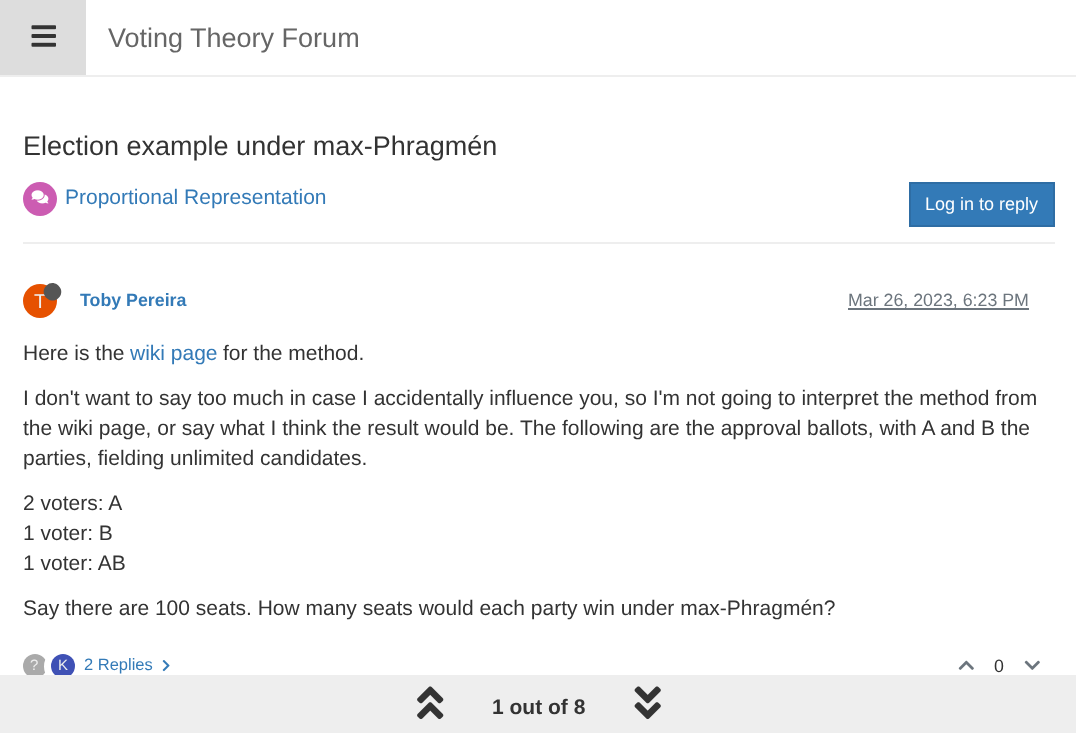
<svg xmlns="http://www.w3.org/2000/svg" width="1076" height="733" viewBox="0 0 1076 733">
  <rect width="100%" height="100%" fill="rgb(255,255,255)"/>
  <rect x="0" y="75" width="1076" height="2" fill="rgb(238,238,238)"/>
  <rect x="0" y="0" width="86" height="75" fill="rgb(221,221,221)"/>
  <image x="31" y="25" width="25" height="22" href="pic1.png"/>
  <text x="108" y="47" font-family="Liberation Sans" font-size="27" fill="rgb(102,102,102)">Voting Theory Forum</text>
  <text x="23" y="155" font-family="Liberation Sans" font-size="27" fill="rgb(51,51,51)">Election example under max-Phragmén</text>
  <rect x="23" y="242" width="1032" height="2" fill="rgb(238,238,238)"/>
  <circle cx="40" cy="199" r="17" fill="rgb(204,92,178)"/>
  <image x="31" y="190" width="18" height="14" href="pic2.png"/>
  <text x="65" y="204" font-family="Liberation Sans" font-size="21" fill="rgb(51,122,183)">Proportional Representation</text>
  <rect x="910" y="183" width="144" height="43" fill="rgb(51,122,183)" stroke="rgb(46,109,164)" stroke-width="2"/>
  <text x="925" y="210" font-family="Liberation Sans" font-size="18" fill="rgb(255,255,255)">Log in to reply</text>
  <circle cx="40" cy="301" r="17" fill="rgb(230,81,0)"/>
  <text x="34" y="308" font-family="Liberation Sans" font-size="20" fill="rgb(238,238,238)">T</text>
  <path d="M46.5 285.5C54.5 277.5 67 290 58.5 298C50.5 306 38 293.5 46.5 285.5Z" fill="rgb(85,85,85)"/>
  <text x="80" y="306" font-family="Liberation Sans" font-size="17.8" font-weight="bold" fill="rgb(51,122,183)">Toby Pereira</text>
  <rect x="848" y="308" width="181" height="2" fill="rgb(108,117,125)"/>
  <text x="848" y="306" font-family="Liberation Sans" font-size="17.8" fill="rgb(108,117,125)">Mar 26, 2023, 6:23 PM</text>
  <text x="23" y="360" font-family="Liberation Sans" font-size="21" fill="rgb(51,51,51)">Here is the</text>
  <text x="130" y="360" font-family="Liberation Sans" font-size="21" fill="rgb(51,122,183)">wiki page</text>
  <g font-family="Liberation Sans" font-size="21" fill="rgb(51,51,51)">
    <text x="223" y="360">for the method.</text>
    <text>
      <tspan x="23" y="405">I don't want to say too much in case I accidentally influence you, so I'm not going to interpret the method from</tspan>
      <tspan x="23" y="435">the wiki page, or say what I think the result would be. The following are the approval ballots, with A and B the</tspan>
      <tspan x="23" y="465">parties, fielding unlimited candidates.</tspan>
    </text>
    <text>
      <tspan x="23" y="510">2 voters: A</tspan>
      <tspan x="23" y="540">1 voter: B</tspan>
      <tspan x="23" y="570">1 voter: AB</tspan>
    </text>
    <text x="23" y="615">Say there are 100 seats. How many seats would each party win under max-Phragmén?</text>
  </g>
  <circle cx="35" cy="666" r="12" fill="rgb(170,170,170)"/>
  <text x="30" y="670" font-family="Liberation Sans" font-size="15" fill="rgb(238,238,238)">?</text>
  <circle cx="63.5" cy="666.5" r="15.5" fill="none" stroke="rgb(255,255,255)" stroke-width="8"/>
  <circle cx="63" cy="666" r="12" fill="rgb(63,81,181)"/>
  <text x="58" y="670" font-family="Liberation Sans" font-size="15" fill="rgb(238,238,238)">K</text>
  <text x="84" y="670" font-family="Liberation Sans" font-size="16.5" fill="rgb(51,122,183)">2 Replies</text>
  <image x="162" y="660" width="8" height="12" href="pic3.png"/>
  <image x="958" y="660" width="16" height="10" href="pic4.png"/>
  <text x="994" y="672" font-family="Liberation Sans" font-size="17.8" fill="rgb(51,51,51)">0</text>
  <image x="1024" y="660" width="16" height="10" href="pic5.png"/>
  <rect x="0" y="675" width="1076" height="58" fill="rgb(238,238,238)"/>
  <image x="417" y="686" width="27" height="34" href="pic6.png"/>
  <text x="492" y="714" font-family="Liberation Sans" font-size="21" font-weight="bold" fill="rgb(51,51,51)">1 out of 8</text>
  <image x="634" y="686" width="27" height="34" href="pic7.png"/>
</svg>
